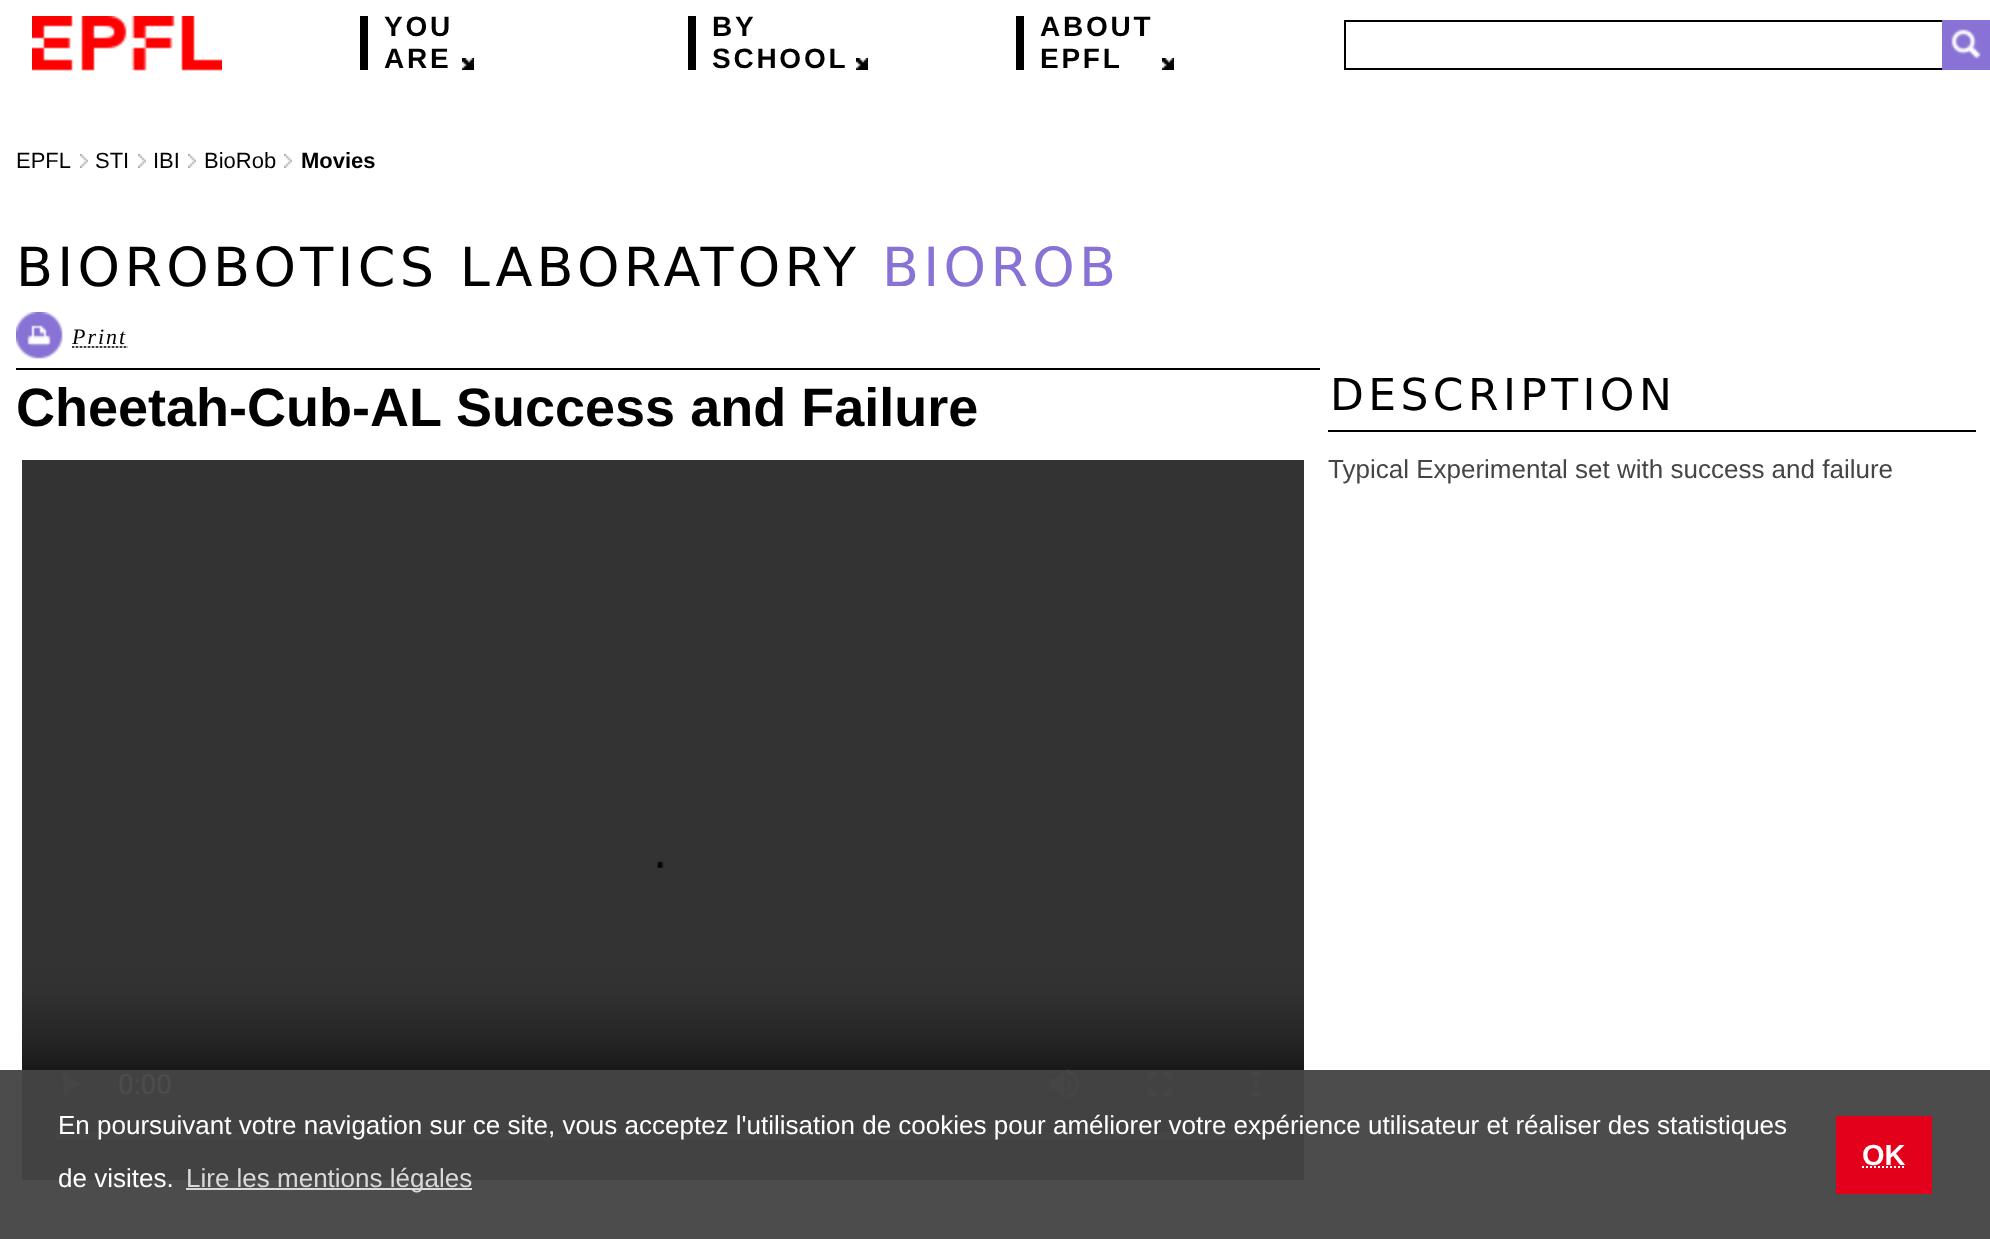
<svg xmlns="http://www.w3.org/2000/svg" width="1990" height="1239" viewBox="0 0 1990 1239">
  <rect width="100%" height="100%" fill="rgb(255,255,255)"/>
  <image x="32" y="16" width="190" height="55" href="pic1.png"/>
  <rect x="360" y="16" width="8" height="54" fill="rgb(0,0,0)"/>
  <g font-family="Liberation Sans" font-size="28" font-weight="bold" letter-spacing="2.75" fill="rgb(0,0,0)">
    <text>
      <tspan x="384" y="36">YOU</tspan>
      <tspan x="384" y="68">ARE</tspan>
    </text>
  </g>
  <image x="462" y="58" width="12" height="12" href="pic2.png"/>
  <rect x="688" y="16" width="8" height="54" fill="rgb(0,0,0)"/>
  <g font-family="Liberation Sans" font-size="28" font-weight="bold" letter-spacing="2.75" fill="rgb(0,0,0)">
    <text>
      <tspan x="712" y="36">BY</tspan>
      <tspan x="712" y="68">SCHOOL</tspan>
    </text>
  </g>
  <image x="856" y="58" width="12" height="12" href="pic2.png"/>
  <rect x="1016" y="16" width="8" height="54" fill="rgb(0,0,0)"/>
  <g font-family="Liberation Sans" font-size="28" font-weight="bold" letter-spacing="2.75" fill="rgb(0,0,0)">
    <text>
      <tspan x="1040" y="36">ABOUT</tspan>
      <tspan x="1040" y="68">EPFL</tspan>
    </text>
  </g>
  <image x="1162" y="58" width="12" height="12" href="pic2.png"/>
  <rect x="1344" y="20" width="598" height="2" fill="rgb(0,0,0)"/>
  <rect x="1344" y="68" width="598" height="2" fill="rgb(0,0,0)"/>
  <rect x="1344" y="20" width="2" height="50" fill="rgb(0,0,0)"/>
  <rect x="1942" y="20" width="48" height="50" fill="rgb(137,114,213)"/>
  <image x="1951" y="29" width="30" height="30" href="pic3.png"/>
  <text x="16" y="168" font-family="Liberation Sans" font-size="22" fill="rgb(0,0,0)">EPFL</text>
  <image x="80" y="154" width="8" height="14" href="pic4.png"/>
  <text x="95" y="168" font-family="Liberation Sans" font-size="22" fill="rgb(0,0,0)">STI</text>
  <image x="138" y="154" width="8" height="14" href="pic4.png"/>
  <text x="153" y="168" font-family="Liberation Sans" font-size="22" fill="rgb(0,0,0)">IBI</text>
  <image x="188" y="154" width="8" height="14" href="pic4.png"/>
  <text x="204" y="168" font-family="Liberation Sans" font-size="22" fill="rgb(0,0,0)">BioRob</text>
  <image x="284" y="154" width="8" height="14" href="pic4.png"/>
  <text x="301" y="168" font-family="Liberation Sans" font-size="22" font-weight="bold" fill="rgb(0,0,0)">Movies</text>
  <text x="16" y="286" font-family="DejaVu Sans" font-size="54" letter-spacing="4.3" fill="rgb(0,0,0)">BIOROBOTICS LABORATORY</text>
  <text x="882" y="286" font-family="DejaVu Sans" font-size="54" letter-spacing="4.3" fill="rgb(137,114,213)">BIOROB</text>
  <image x="16" y="312" width="47" height="47" href="pic5.png"/>
  <image x="72" y="346" width="56" height="2" href="pic6.png"/>
  <text x="72" y="344" font-family="Liberation Serif" font-size="22" font-style="italic" letter-spacing="2" fill="rgb(0,0,0)">Print</text>
  <rect x="16" y="368" width="1304" height="2" fill="rgb(0,0,0)"/>
  <text x="16" y="426" font-family="Liberation Sans" font-size="54" font-weight="bold" fill="rgb(0,0,0)">Cheetah-Cub-AL Success and Failure</text>
  <rect x="22" y="1140" width="1282" height="40" fill="rgb(0,0,0)"/>
  <image x="22" y="460" width="1282" height="680" href="pic7.png"/>
  <rect x="1328" y="430" width="648" height="2" fill="rgb(0,0,0)"/>
  <text x="1330" y="410" font-family="DejaVu Sans" font-size="44" letter-spacing="4.4" fill="rgb(0,0,0)">DESCRIPTION</text>
  <text x="1328" y="478" font-family="Liberation Sans" font-size="26" fill="rgb(69,69,69)">Typical Experimental set with success and failure</text>
  <rect x="0" y="1070" width="1990" height="169" fill="rgba(69,69,69,0.96)"/>
  <g font-family="Liberation Sans" font-size="26" fill="rgb(255,255,255)">
    <text x="58" y="1134">En poursuivant votre navigation sur ce site, vous acceptez l'utilisation de cookies pour améliorer votre expérience utilisateur et réaliser des statistiques</text>
    <text x="58" y="1187">de visites.</text>
  </g>
  <rect x="186" y="1188" width="286" height="2" fill="rgb(219,219,219)"/>
  <text x="186" y="1187" font-family="Liberation Sans" font-size="26" fill="rgb(218,218,218)">Lire les mentions légales</text>
  <rect x="1836" y="1116" width="96" height="78" fill="rgb(226,0,26)"/>
  <text x="1862" y="1165" font-family="Liberation Sans" font-size="29" font-weight="bold" fill="rgb(255,255,255)">OK</text>
  <path d="M1862 1167H1905.5" fill="none" stroke="rgb(255,255,255)" stroke-width="2" stroke-dasharray="2 2"/>
</svg>
